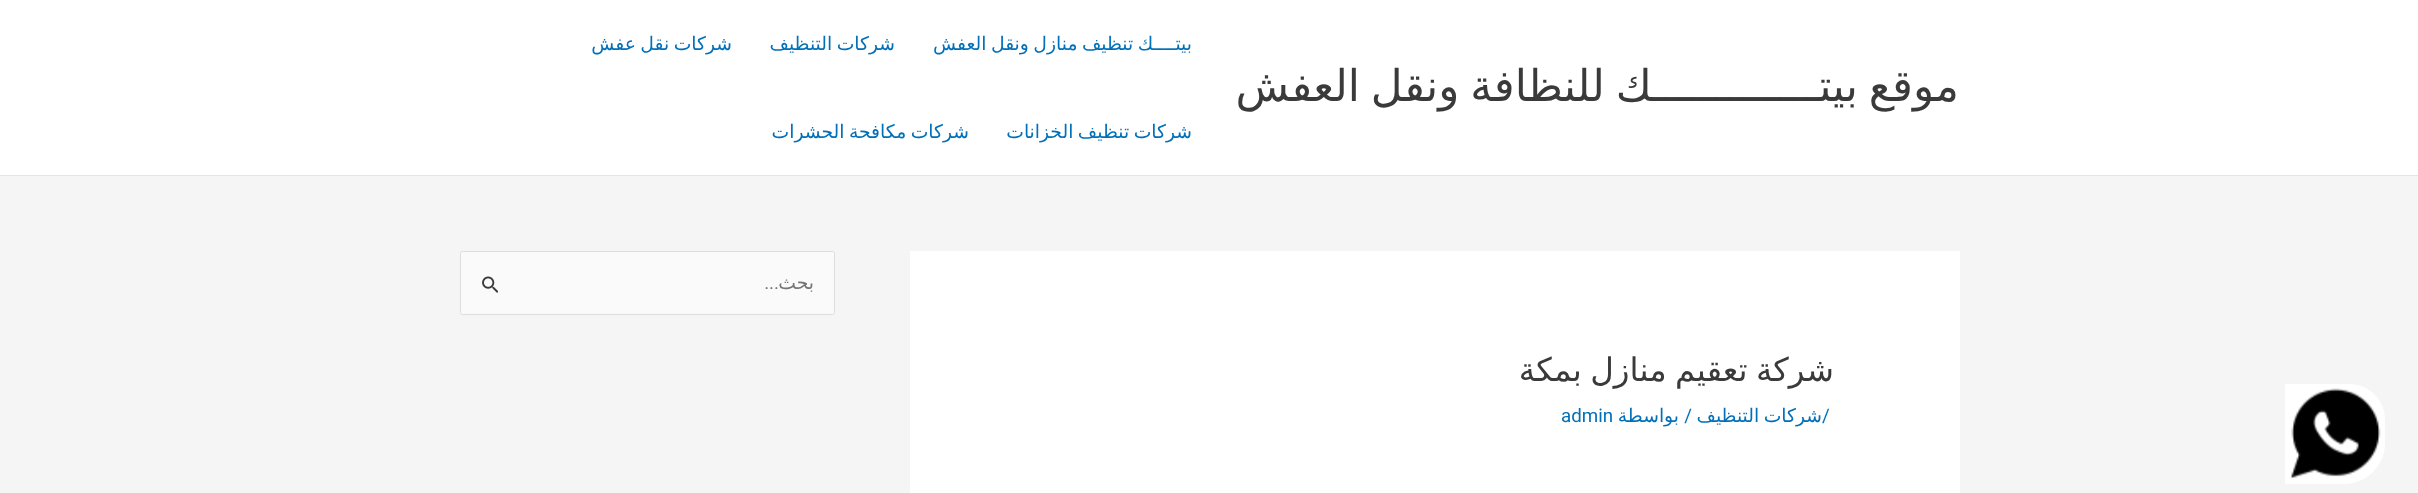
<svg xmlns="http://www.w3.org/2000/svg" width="2418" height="493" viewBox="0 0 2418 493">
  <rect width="100%" height="100%" fill="rgb(245,245,245)"/>
  <rect x="0" y="0" width="2418" height="175" fill="rgb(255,255,255)"/>
  <rect x="0" y="175" width="2418" height="1" fill="rgb(229,229,229)"/>
  <text x="1959" y="101" word-spacing="-3" font-family="DejaVu Sans" font-size="43.75" direction="rtl" fill="rgb(58,58,58)">موقع بيتـــــــــــــك للنظافة ونقل العفش</text>
  <g font-family="DejaVu Sans" font-size="18.75" direction="rtl" fill="rgb(1,112,185)">
    <text x="1192" y="50" word-spacing="-1.5">بيتــــك تنظيف منازل ونقل العفش</text>
    <text x="895" y="50" word-spacing="-1.5">شركات التنظيف</text>
    <text x="732" y="50" word-spacing="-1.5">شركات نقل عفش</text>
    <text x="1192" y="138" word-spacing="-1.5">شركات تنظيف الخزانات</text>
    <text x="969" y="138" word-spacing="-1.5">شركات مكافحة الحشرات</text>
  </g>
  <rect x="460.5" y="251.5" width="374" height="63" rx="2" fill="rgb(250,250,250)" stroke="rgb(221,221,221)"/>
  <text x="814" y="289" font-family="DejaVu Sans" font-size="18.75" direction="rtl" fill="rgb(117,117,117)">بحث</text>
  <text x="779" y="289" font-family="Roboto" font-size="18.75" direction="rtl" fill="rgb(117,117,117)">...</text>
  <image x="482" y="276" width="16" height="17" href="pic1.png"/>
  <rect x="910" y="251" width="1050" height="242" fill="rgb(255,255,255)"/>
  <path d="M2285 384H2349C2369 384 2385 400 2385 420V443C2385 465.5 2366.5 484 2344 484H2285Z" fill="rgb(255,255,255)"/>
  <image x="2290" y="388" width="91" height="91" href="pic2.png"/>
  <text x="1834" y="381" word-spacing="-2" font-family="DejaVu Sans" font-size="32.5" direction="rtl" fill="rgb(58,58,58)">شركة تعقيم منازل بمكة</text>
  <text x="1822" y="422" font-family="Roboto" font-size="18.75" fill="rgb(1,112,185)">/</text>
  <text x="1822" y="422" word-spacing="-1.5" font-family="DejaVu Sans" font-size="18.75" direction="rtl" fill="rgb(1,112,185)">شركات التنظيف</text>
  <text x="1692" y="422" font-family="Roboto" font-size="18.75" direction="rtl" fill="rgb(1,112,185)">/</text>
  <text x="1679" y="422" font-family="DejaVu Sans" font-size="18.75" direction="rtl" fill="rgb(1,112,185)">بواسطة</text>
  <text x="1561" y="422" font-family="Roboto" font-size="18.75" fill="rgb(1,112,185)">admin</text>
</svg>
